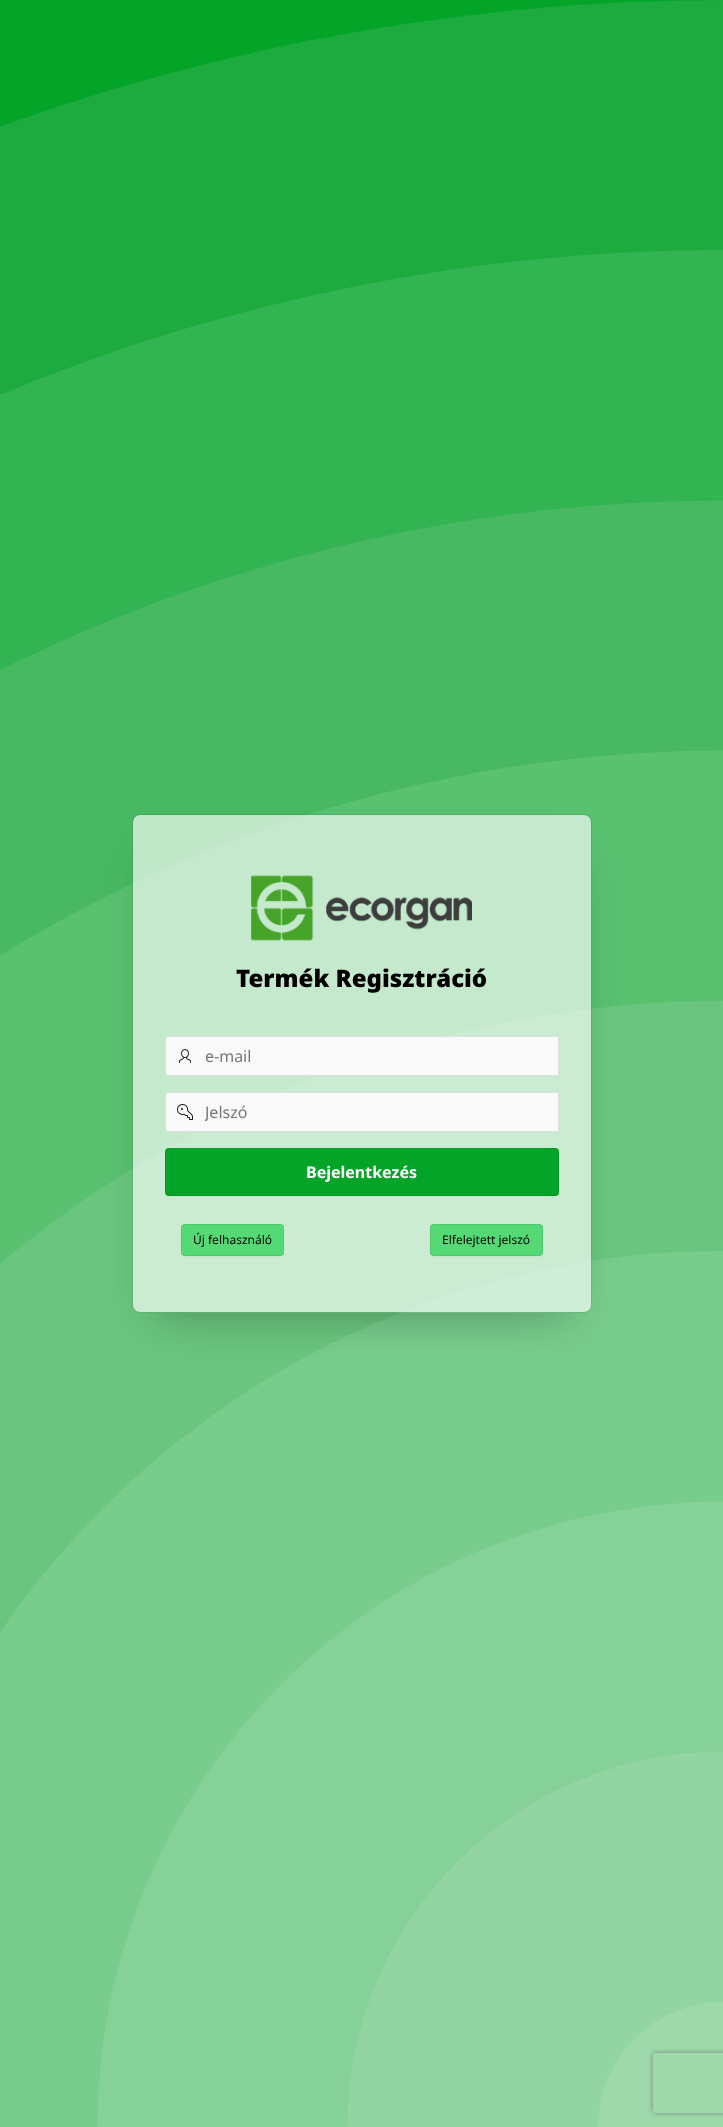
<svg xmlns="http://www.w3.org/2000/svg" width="723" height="2127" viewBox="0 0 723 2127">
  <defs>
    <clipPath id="clip1"><path d="M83 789H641V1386H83ZM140 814H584C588.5 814 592 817.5 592 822V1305C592 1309.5 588.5 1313 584 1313H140C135.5 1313 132 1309.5 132 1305V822C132 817.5 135.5 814 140 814Z" clip-rule="evenodd"/></clipPath>
    <clipPath id="clip2"><rect x="205" y="1101" width="346" height="22"/></clipPath>
    <clipPath id="clip3"><path d="M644 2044H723V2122H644ZM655 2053H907C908 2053 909 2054 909 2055V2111C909 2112 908 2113 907 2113H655C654 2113 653 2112 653 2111V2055C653 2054 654 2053 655 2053Z" clip-rule="evenodd"/></clipPath>
  </defs>
  <rect width="100%" height="100%" fill="rgb(4,164,41)"/>
  <circle cx="723" cy="2127" r="2127" fill="rgb(29,170,62)"/>
  <circle cx="723" cy="2127" r="1877" fill="rgb(51,180,82)"/>
  <circle cx="723" cy="2127" r="1626.5" fill="rgb(72,185,98)"/>
  <circle cx="723" cy="2127" r="1376.5" fill="rgb(90,193,113)"/>
  <circle cx="723" cy="2127" r="1126" fill="rgb(106,198,126)"/>
  <circle cx="723" cy="2127" r="876" fill="rgb(120,205,140)"/>
  <circle cx="723" cy="2127" r="625.5" fill="rgb(134,209,152)"/>
  <circle cx="723" cy="2127" r="375.5" fill="rgb(146,213,162)"/>
  <circle cx="723" cy="2127" r="125" fill="rgb(157,217,171)"/>
  <g clip-path="url(#clip1)">
    <rect x="156" y="862" width="412" height="451" fill="rgba(0,0,0,0.3)" filter="blur(24px)"/>
  </g>
  <rect x="133" y="815" width="458" height="497" rx="7" fill="rgba(255,255,255,0.65)"/>
  <rect x="132.5" y="814.5" width="459" height="498" rx="7.5" fill="none" stroke="rgba(0,0,0,0.1)"/>
  <image x="251" y="875" width="221" height="66" href="pic1.png"/>
  <text x="236" y="987" font-family="Noto Sans" font-size="24" font-weight="900" fill="rgb(0,0,0)">Termék Regisztráció</text>
  <rect x="165.5" y="1036.5" width="393" height="39" rx="1.5" fill="rgb(249,249,249)" stroke="rgb(223,223,223)"/>
  <image x="179" y="1049" width="12" height="14" href="pic2.png"/>
  <text x="205" y="1062" font-family="Noto Sans" font-size="16" fill="rgb(119,119,119)">e-mail</text>
  <rect x="165.5" y="1092.5" width="393" height="39" rx="1.5" fill="rgb(249,249,249)" stroke="rgb(223,223,223)"/>
  <image x="177" y="1104" width="16" height="16" href="pic3.png"/>
  <g clip-path="url(#clip2)">
    <text x="205" y="1118" font-family="Noto Sans" font-size="16" fill="rgb(119,119,119)">Jelszó</text>
  </g>
  <rect x="168" y="1153" width="388" height="42" rx="1" fill="rgba(0,0,0,0.1)" filter="blur(2px)"/>
  <rect x="165" y="1148" width="394" height="48" rx="4" fill="rgb(4,164,41)"/>
  <rect x="165.5" y="1148.5" width="393" height="47" rx="3.5" fill="none" stroke="rgba(0,0,0,0.07)"/>
  <text x="306" y="1178" font-family="Noto Sans" font-size="16" font-weight="bold" fill="rgb(255,255,255)">Bejelentkezés</text>
  <rect x="184" y="1229" width="97" height="26" rx="1" fill="rgba(0,0,0,0.1)" filter="blur(2px)"/>
  <rect x="181" y="1224" width="103" height="32" rx="4" fill="rgb(85,217,116)"/>
  <rect x="181.5" y="1224.5" width="102" height="31" rx="3.5" fill="none" stroke="rgba(0,0,0,0.07)"/>
  <text x="193" y="1244" font-family="Noto Sans" font-size="12" fill="rgb(0,0,0)">Új felhasználó</text>
  <rect x="433" y="1229" width="107" height="26" rx="1" fill="rgba(0,0,0,0.1)" filter="blur(2px)"/>
  <rect x="430" y="1224" width="113" height="32" rx="4" fill="rgb(85,217,116)"/>
  <rect x="430.5" y="1224.5" width="112" height="31" rx="3.5" fill="none" stroke="rgba(0,0,0,0.07)"/>
  <text x="442" y="1244" font-family="Noto Sans" font-size="12" fill="rgb(0,0,0)">Elfelejtett jelszó</text>
  <g clip-path="url(#clip3)">
    <rect x="653" y="2053" width="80" height="60" rx="2" fill="rgb(128,128,128)" filter="blur(2.5px)"/>
  </g>
</svg>
